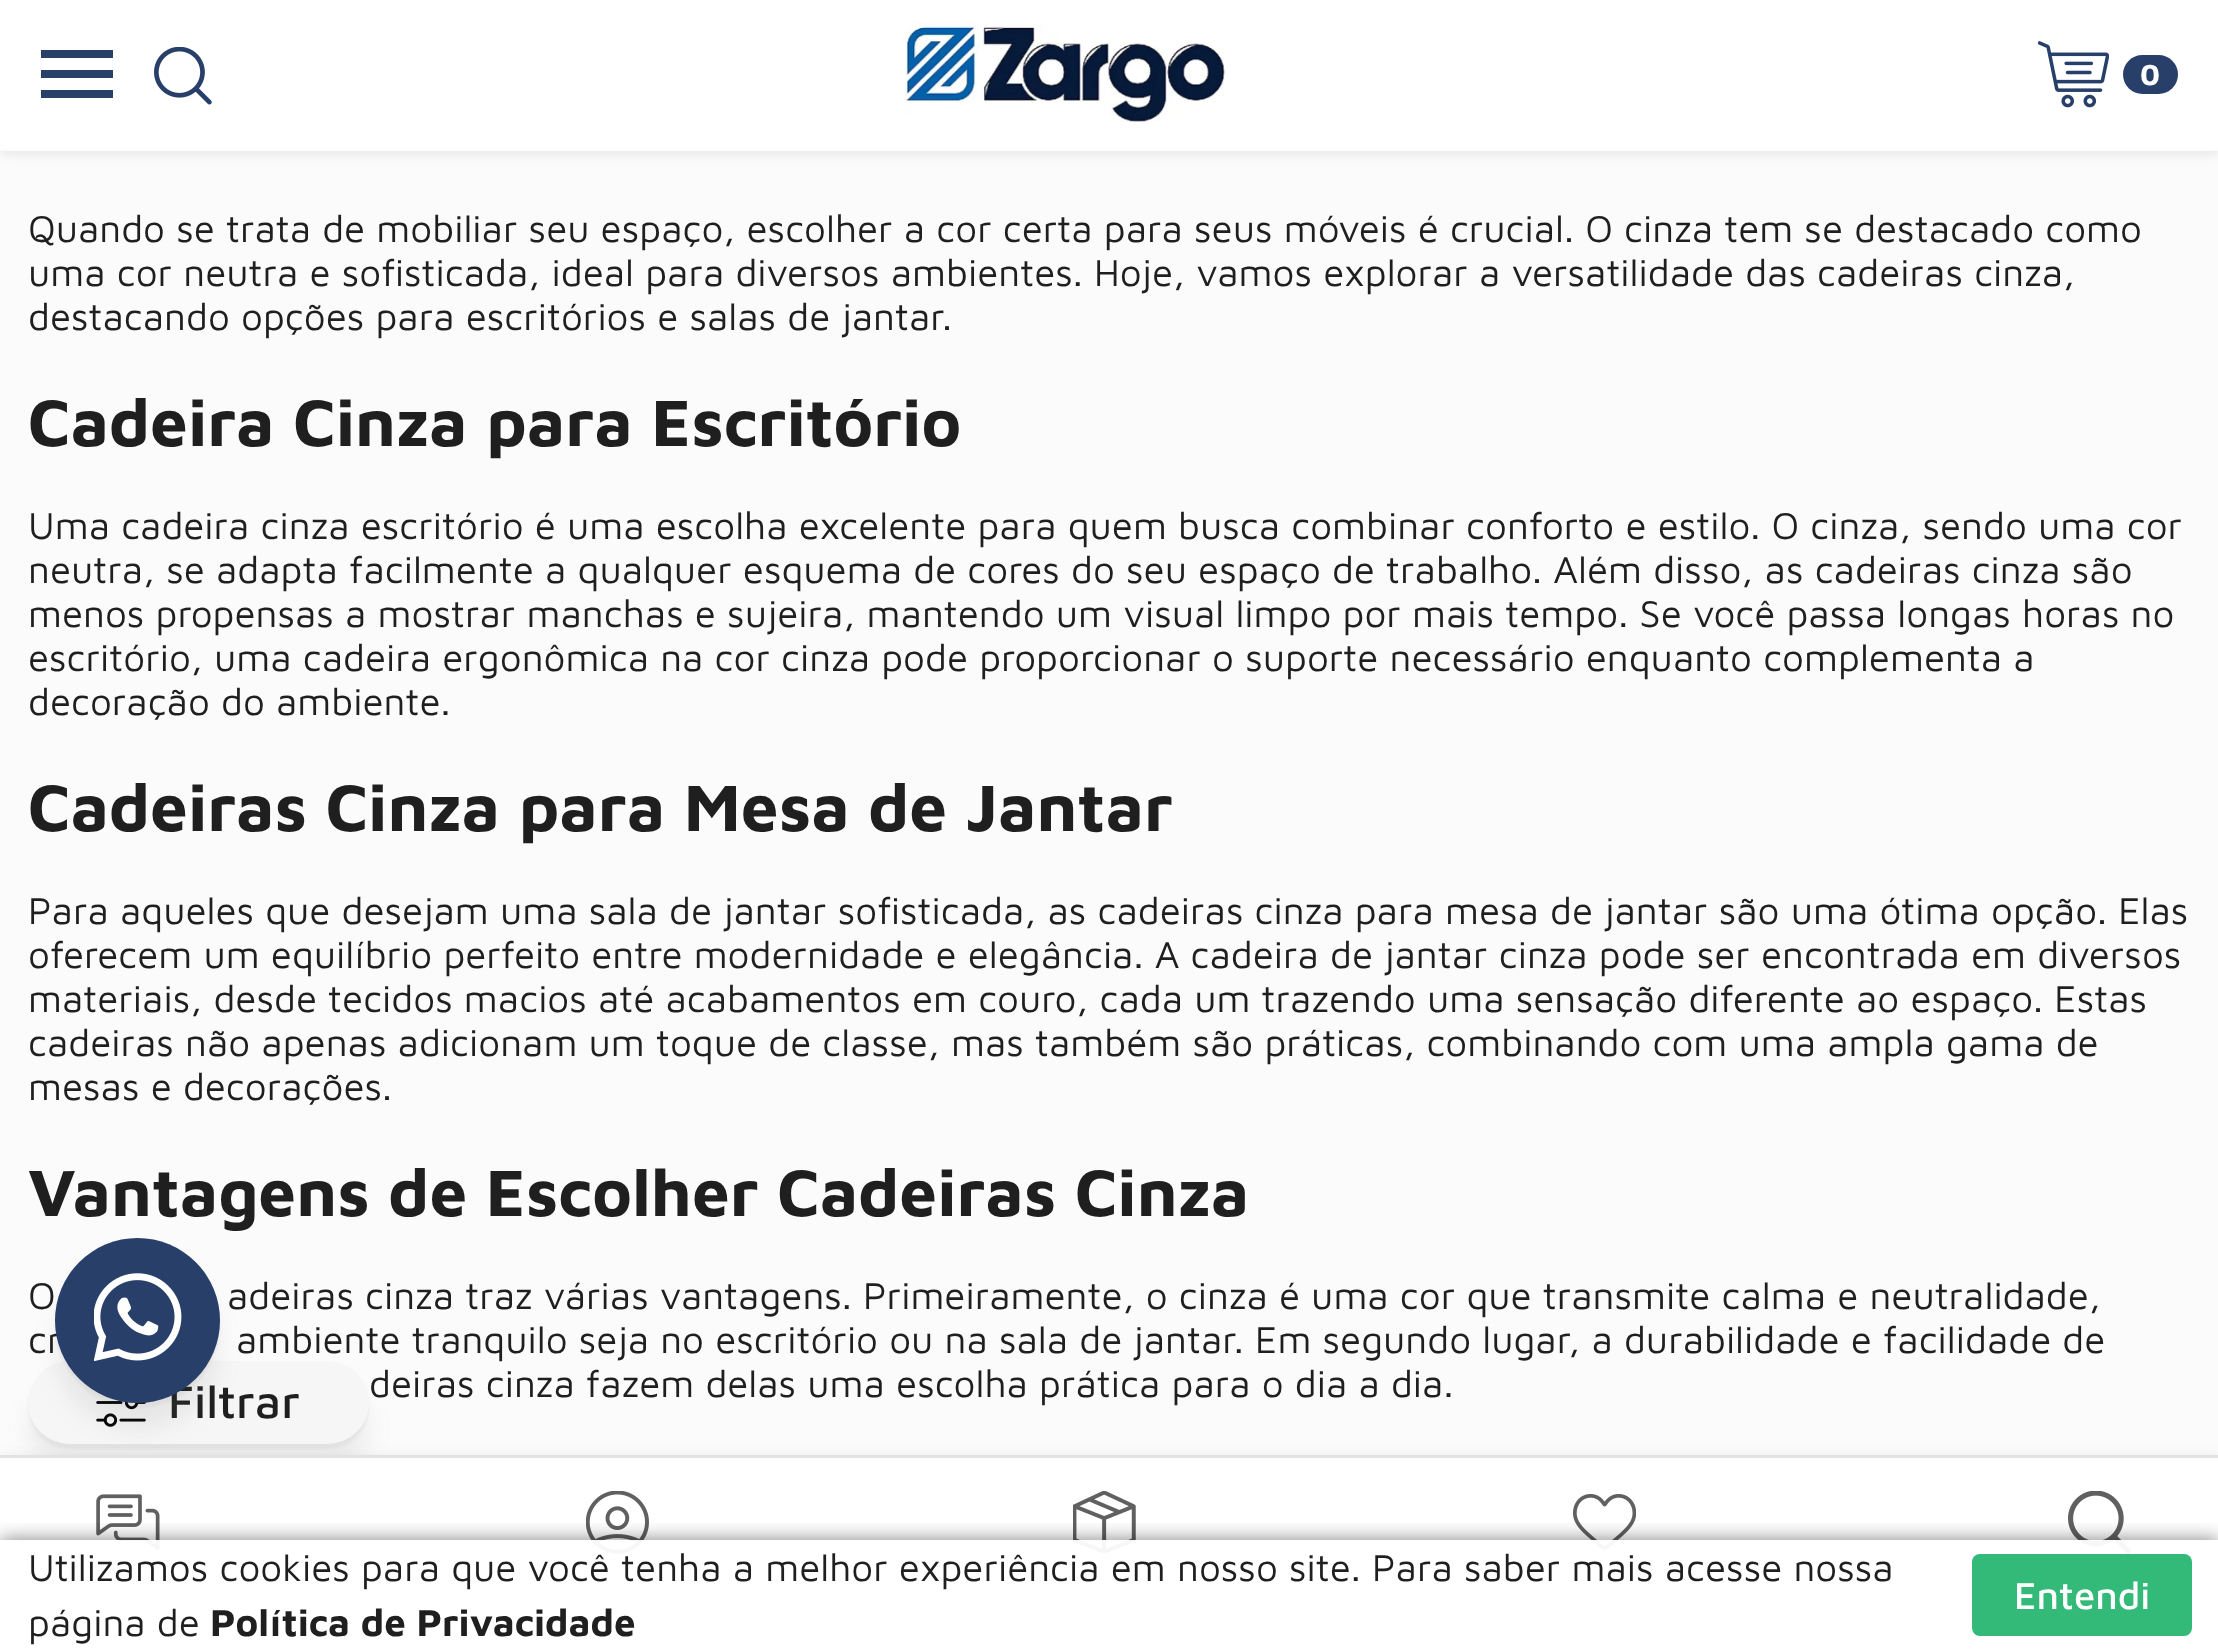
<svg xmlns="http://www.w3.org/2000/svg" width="2218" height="1650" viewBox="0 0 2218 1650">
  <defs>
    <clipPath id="clip1"><rect x="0" y="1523" width="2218" height="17"/></clipPath>
  </defs>
  <rect width="100%" height="100%" fill="rgb(251,251,251)"/>
  <rect x="0" y="3" width="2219" height="151" fill="rgba(82,82,82,0.13)" filter="blur(5.5px)"/>
  <rect x="0" y="0" width="2218" height="151" fill="rgb(255,255,255)"/>
  <rect x="0" y="149" width="2218" height="2" fill="rgba(239,239,239,0.19)"/>
  <rect x="41" y="90" width="72" height="8" fill="rgb(40,63,106)"/>
  <rect x="41" y="70" width="72" height="8" fill="rgb(40,63,106)"/>
  <rect x="41" y="50" width="72" height="8" fill="rgb(40,63,106)"/>
  <image x="154" y="47" width="58" height="58" href="pic1.png"/>
  <image x="905" y="22" width="320" height="100" href="pic2.png"/>
  <image x="2038" y="41" width="71" height="67" href="pic3.png"/>
  <rect x="2123" y="55" width="55" height="39" rx="19.5" fill="rgb(40,63,106)"/>
  <text x="2140" y="85" font-family="Maven Pro" font-size="30" font-weight="bold" fill="rgb(255,255,255)">0</text>
  <g font-family="Maven Pro" font-size="38.5" fill="rgb(32,31,31)">
    <text>
      <tspan x="28" y="242">Quando se trata de mobiliar seu espaço, escolher a cor certa para seus móveis é crucial. O cinza tem se destacado como</tspan>
      <tspan x="28" y="286">uma cor neutra e sofisticada, ideal para diversos ambientes. Hoje, vamos explorar a versatilidade das cadeiras cinza,</tspan>
      <tspan x="28" y="330">destacando opções para escritórios e salas de jantar.</tspan>
    </text>
  </g>
  <text x="28" y="446" font-family="Maven Pro" font-size="67.4" font-weight="bold" fill="rgb(32,31,31)">Cadeira Cinza para Escritório</text>
  <g font-family="Maven Pro" font-size="38.5" fill="rgb(32,31,31)">
    <text>
      <tspan x="28" y="539">Uma cadeira cinza escritório é uma escolha excelente para quem busca combinar conforto e estilo. O cinza, sendo uma cor</tspan>
      <tspan x="28" y="583">neutra, se adapta facilmente a qualquer esquema de cores do seu espaço de trabalho. Além disso, as cadeiras cinza são</tspan>
      <tspan x="28" y="627">menos propensas a mostrar manchas e sujeira, mantendo um visual limpo por mais tempo. Se você passa longas horas no</tspan>
      <tspan x="28" y="671">escritório, uma cadeira ergonômica na cor cinza pode proporcionar o suporte necessário enquanto complementa a</tspan>
      <tspan x="28" y="715">decoração do ambiente.</tspan>
    </text>
  </g>
  <text x="28" y="831" font-family="Maven Pro" font-size="67.4" font-weight="bold" fill="rgb(32,31,31)">Cadeiras Cinza para Mesa de Jantar</text>
  <g font-family="Maven Pro" font-size="38.5" fill="rgb(32,31,31)">
    <text>
      <tspan x="28" y="924">Para aqueles que desejam uma sala de jantar sofisticada, as cadeiras cinza para mesa de jantar são uma ótima opção. Elas</tspan>
      <tspan x="28" y="968">oferecem um equilíbrio perfeito entre modernidade e elegância. A cadeira de jantar cinza pode ser encontrada em diversos</tspan>
      <tspan x="28" y="1012">materiais, desde tecidos macios até acabamentos em couro, cada um trazendo uma sensação diferente ao espaço. Estas</tspan>
      <tspan x="28" y="1056">cadeiras não apenas adicionam um toque de classe, mas também são práticas, combinando com uma ampla gama de</tspan>
      <tspan x="28" y="1100">mesas e decorações.</tspan>
    </text>
  </g>
  <text x="28" y="1216" font-family="Maven Pro" font-size="67.4" font-weight="bold" fill="rgb(32,31,31)">Vantagens de Escolher Cadeiras Cinza</text>
  <g font-family="Maven Pro" font-size="38.5" fill="rgb(32,31,31)">
    <text x="28" y="1309">O</text>
    <text x="227" y="1309">adeiras cinza traz várias vantagens. Primeiramente, o cinza é uma cor que transmite calma e neutralidade,</text>
    <text x="28" y="1353">cr</text>
    <text x="236" y="1353">ambiente tranquilo seja no escritório ou na sala de jantar. Em segundo lugar, a durabilidade e facilidade de</text>
    <text x="369" y="1397">deiras cinza fazem delas uma escolha prática para o dia a dia.</text>
  </g>
  <rect x="28" y="1389" width="341" height="82" rx="41" fill="rgba(103,103,103,0.1)" filter="blur(11px)"/>
  <rect x="28" y="1367" width="341" height="82" rx="41" fill="rgba(0,0,0,0.04)" filter="blur(1.5px)"/>
  <rect x="28" y="1361" width="341" height="83" rx="41.5" fill="rgb(246,246,246)"/>
  <image x="96" y="1401" width="50" height="26" href="pic4.png"/>
  <text x="168" y="1418" font-family="Maven Pro" font-size="47" font-weight="500" fill="rgb(32,31,31)">Filtrar</text>
  <rect x="55" y="1265" width="165" height="165" rx="82.5" fill="rgba(103,103,103,0.1)" filter="blur(11px)"/>
  <rect x="55" y="1243" width="165" height="165" rx="82.5" fill="rgba(0,0,0,0.04)" filter="blur(1.5px)"/>
  <circle cx="137.5" cy="1320.5" r="82.5" fill="rgb(40,63,106)"/>
  <image x="94" y="1273" width="88" height="88" href="pic5.png"/>
  <rect x="0" y="1455" width="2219" height="195" fill="rgba(82,82,82,0.08)" filter="blur(5.5px)"/>
  <rect x="0" y="1458" width="2218" height="192" fill="rgb(255,255,255)"/>
  <rect x="0" y="1455" width="2218" height="3" fill="rgb(226,226,226)"/>
  <image x="96" y="1494" width="64" height="56" href="pic6.png"/>
  <image x="586" y="1491" width="63" height="63" href="pic7.png"/>
  <image x="1073" y="1491" width="63" height="63" href="pic8.png"/>
  <image x="1573" y="1494" width="63" height="57" href="pic9.png"/>
  <image x="2068" y="1491" width="63" height="63" href="pic10.png"/>
  <g clip-path="url(#clip1)">
    <rect x="0" y="1540" width="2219" height="110" fill="rgba(0,0,0,0.5)" filter="blur(9.5px)"/>
  </g>
  <rect x="117" y="1540" width="2014" height="14" fill="rgba(255,255,255,0.95)"/>
  <g font-family="Maven Pro" font-size="38.5" fill="rgb(32,31,31)">
    <text>
      <tspan x="28" y="1581">Utilizamos cookies para que você tenha a melhor experiência em nosso site. Para saber mais acesse nossa</tspan>
      <tspan x="28" y="1636">página de</tspan>
    </text>
  </g>
  <text x="210" y="1636" font-family="Maven Pro" font-size="38.5" font-weight="bold" fill="rgb(32,31,31)">Política de Privacidade</text>
  <rect x="1972" y="1554" width="220" height="82" rx="8" fill="rgb(51,186,121)"/>
  <text x="2014" y="1609" font-family="Maven Pro" font-size="38.5" font-weight="500" fill="rgb(255,255,255)">Entendi</text>
</svg>
